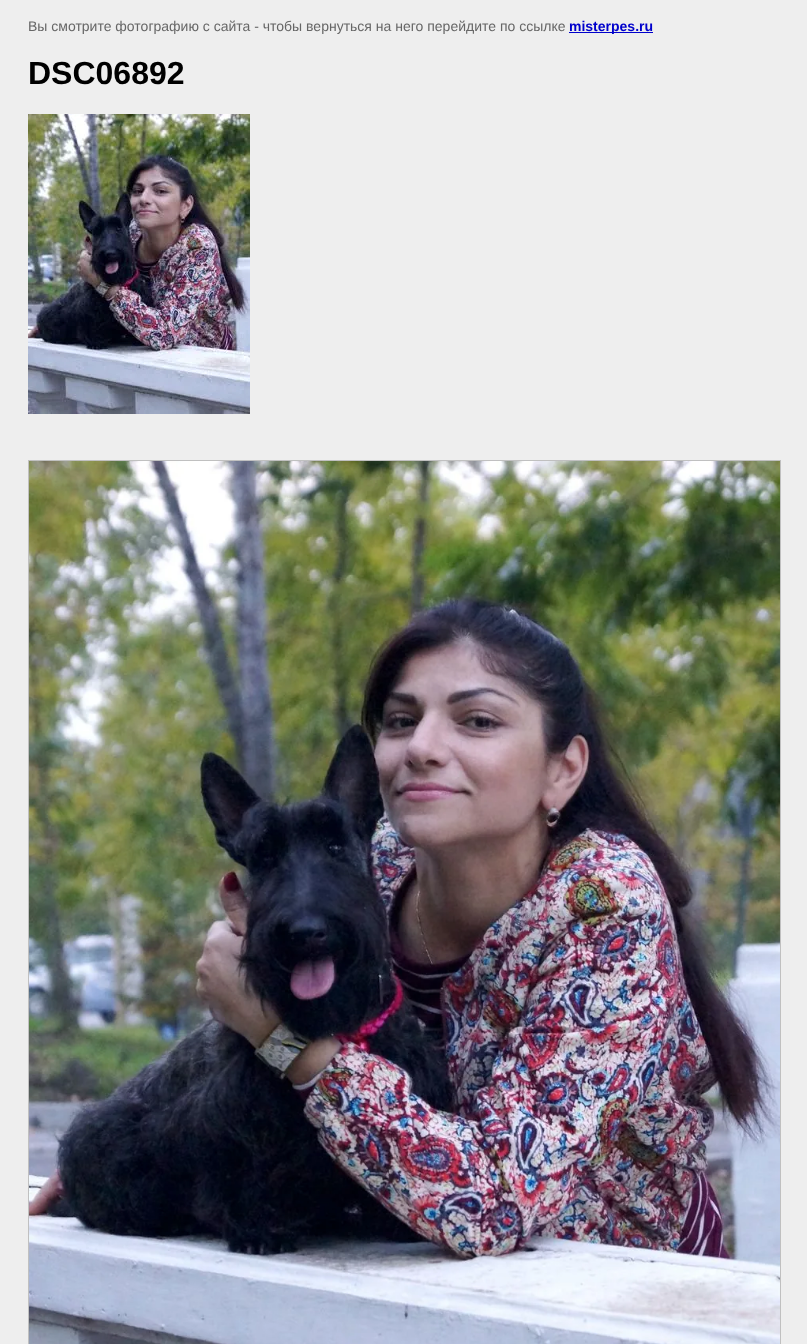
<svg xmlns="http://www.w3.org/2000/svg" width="807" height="1344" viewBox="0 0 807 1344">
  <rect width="100%" height="100%" fill="rgb(238,238,238)"/>
  <text x="28" y="31" font-family="Liberation Sans" font-size="14" fill="rgb(102,102,102)">Вы смотрите фотографию с сайта - чтобы вернуться на него перейдите по ссылке</text>
  <rect x="569" y="32" width="84" height="1" fill="rgb(0,0,204)"/>
  <text x="569" y="31" font-family="Liberation Sans" font-size="14" font-weight="bold" fill="rgb(0,0,204)">misterpes.ru</text>
  <text x="28" y="84" font-family="Liberation Sans" font-size="32" font-weight="bold" fill="rgb(0,0,0)">DSC06892</text>
  <image x="28" y="114" width="222" height="300" href="pic1.png"/>
  <rect x="28.5" y="460.5" width="752" height="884" fill="none" stroke="rgb(192,192,192)"/>
  <image x="29" y="461" width="751" height="883" href="pic2.png"/>
</svg>
